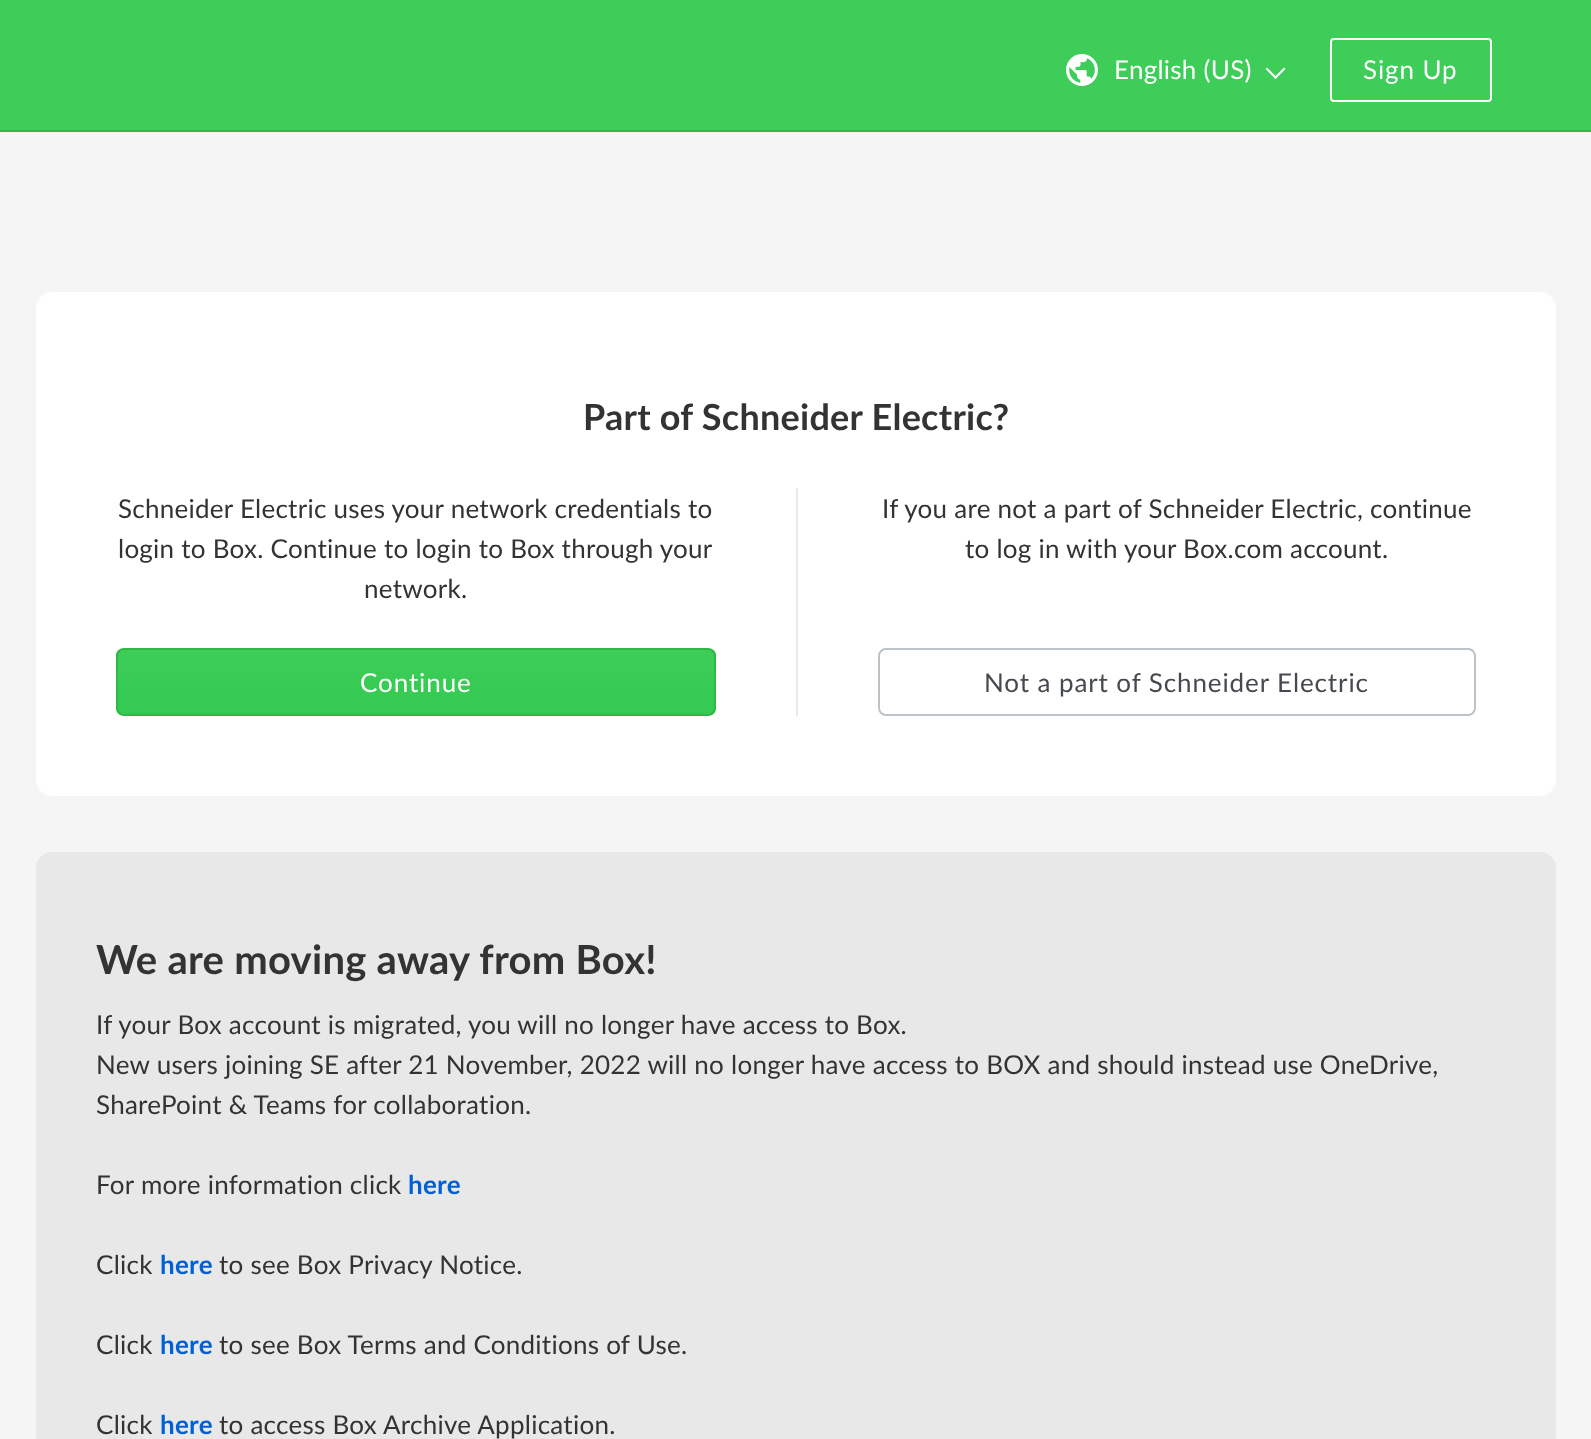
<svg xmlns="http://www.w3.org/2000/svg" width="1591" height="1439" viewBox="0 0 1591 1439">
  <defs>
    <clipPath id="clip1"><rect x="116" y="648" width="600" height="68" rx="8"/></clipPath>
    <linearGradient id="g1" gradientUnits="userSpaceOnUse" x1="416" y1="650" x2="416" y2="714"><stop offset="0" stop-color="rgb(61,205,88)"/><stop offset="1" stop-color="rgb(52,202,81)"/></linearGradient>
  </defs>
  <rect width="100%" height="100%" fill="rgb(245,245,245)"/>
  <rect x="0" y="0" width="1591" height="130" fill="rgb(61,205,88)"/>
  <rect x="0" y="130" width="1591" height="2" fill="rgb(47,183,72)"/>
  <image x="1066" y="54" width="32" height="32" href="pic1.png"/>
  <text x="1114" y="79" font-family="Lato" font-size="26" letter-spacing="0.26" fill="rgb(255,255,255)">English (US)</text>
  <path d="M1284 67.5L1285.5 69L1275.5 79L1274 77.5Z" fill="rgb(255,255,255)"/>
  <path d="M1267 67.5L1277 77.5L1275.5 79L1265.5 69Z" fill="rgb(255,255,255)"/>
  <rect x="1331" y="39" width="160" height="62" rx="3" fill="none" stroke="rgb(255,255,255)" stroke-width="2"/>
  <text x="1363" y="79" font-family="Lato" font-size="26" letter-spacing="0.9" fill="rgb(255,255,255)">Sign Up</text>
  <rect x="36" y="292" width="1520" height="504" rx="16" fill="rgb(255,255,255)"/>
  <text x="583" y="430" font-family="Lato" font-size="36" font-weight="bold" letter-spacing="0.26" fill="rgb(51,51,51)">Part of Schneider Electric?</text>
  <g font-family="Lato" font-size="26" letter-spacing="0.26" fill="rgb(51,51,51)">
    <text>
      <tspan x="118" y="518">Schneider Electric uses your network credentials to</tspan>
      <tspan x="118" y="558">login to Box. Continue to login to Box through your</tspan>
    </text>
    <text x="364" y="598">network.</text>
  </g>
  <g clip-path="url(#clip1)">
    <rect x="116" y="650" width="600" height="64" fill="url(#g1)"/>
  </g>
  <rect x="117" y="649" width="598" height="66" rx="7" fill="none" stroke="rgb(47,183,72)" stroke-width="2"/>
  <text x="360" y="692" font-family="Lato" font-size="26" letter-spacing="0.9" fill="rgb(255,255,255)">Continue</text>
  <rect x="796" y="488" width="2" height="228" fill="rgb(232,232,232)"/>
  <g font-family="Lato" font-size="26" letter-spacing="0.26" fill="rgb(51,51,51)">
    <text x="882" y="518">If you are not a part of Schneider Electric, continue</text>
    <text x="965" y="558">to log in with your Box.com account.</text>
  </g>
  <rect x="879" y="649" width="596" height="66" rx="7" fill="none" stroke="rgb(189,195,199)" stroke-width="2"/>
  <text x="984" y="692" font-family="Lato" font-size="26" letter-spacing="0.9" fill="rgb(70,74,79)">Not a part of Schneider Electric</text>
  <rect x="36" y="852" width="1520" height="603" rx="16" fill="rgb(232,232,232)"/>
  <text x="96" y="974" font-family="Lato" font-size="40" font-weight="bold" letter-spacing="0.26" fill="rgb(51,51,51)">We are moving away from Box!</text>
  <g font-family="Lato" font-size="26" letter-spacing="0.26" fill="rgb(51,51,51)">
    <text>
      <tspan x="96" y="1034">If your Box account is migrated, you will no longer have access to Box.</tspan>
      <tspan x="96" y="1074">New users joining SE after 21 November, 2022 will no longer have access to BOX and should instead use OneDrive,</tspan>
      <tspan x="96" y="1114">SharePoint &amp; Teams for collaboration.</tspan>
    </text>
    <text x="96" y="1194">For more information click</text>
  </g>
  <text x="408" y="1194" font-family="Lato" font-size="26" font-weight="bold" letter-spacing="0.26" fill="rgb(0,97,213)">here</text>
  <text x="96" y="1274" font-family="Lato" font-size="26" letter-spacing="0.26" fill="rgb(51,51,51)">Click</text>
  <text x="160" y="1274" font-family="Lato" font-size="26" font-weight="bold" letter-spacing="0.26" fill="rgb(0,97,213)">here</text>
  <g font-family="Lato" font-size="26" letter-spacing="0.26" fill="rgb(51,51,51)">
    <text x="219" y="1274">to see Box Privacy Notice.</text>
    <text x="96" y="1354">Click</text>
  </g>
  <text x="160" y="1354" font-family="Lato" font-size="26" font-weight="bold" letter-spacing="0.26" fill="rgb(0,97,213)">here</text>
  <g font-family="Lato" font-size="26" letter-spacing="0.26" fill="rgb(51,51,51)">
    <text x="219" y="1354">to see Box Terms and Conditions of Use.</text>
    <text x="96" y="1434">Click</text>
  </g>
  <text x="160" y="1434" font-family="Lato" font-size="26" font-weight="bold" letter-spacing="0.26" fill="rgb(0,97,213)">here</text>
  <text x="219" y="1434" font-family="Lato" font-size="26" letter-spacing="0.26" fill="rgb(51,51,51)">to access Box Archive Application.</text>
</svg>
